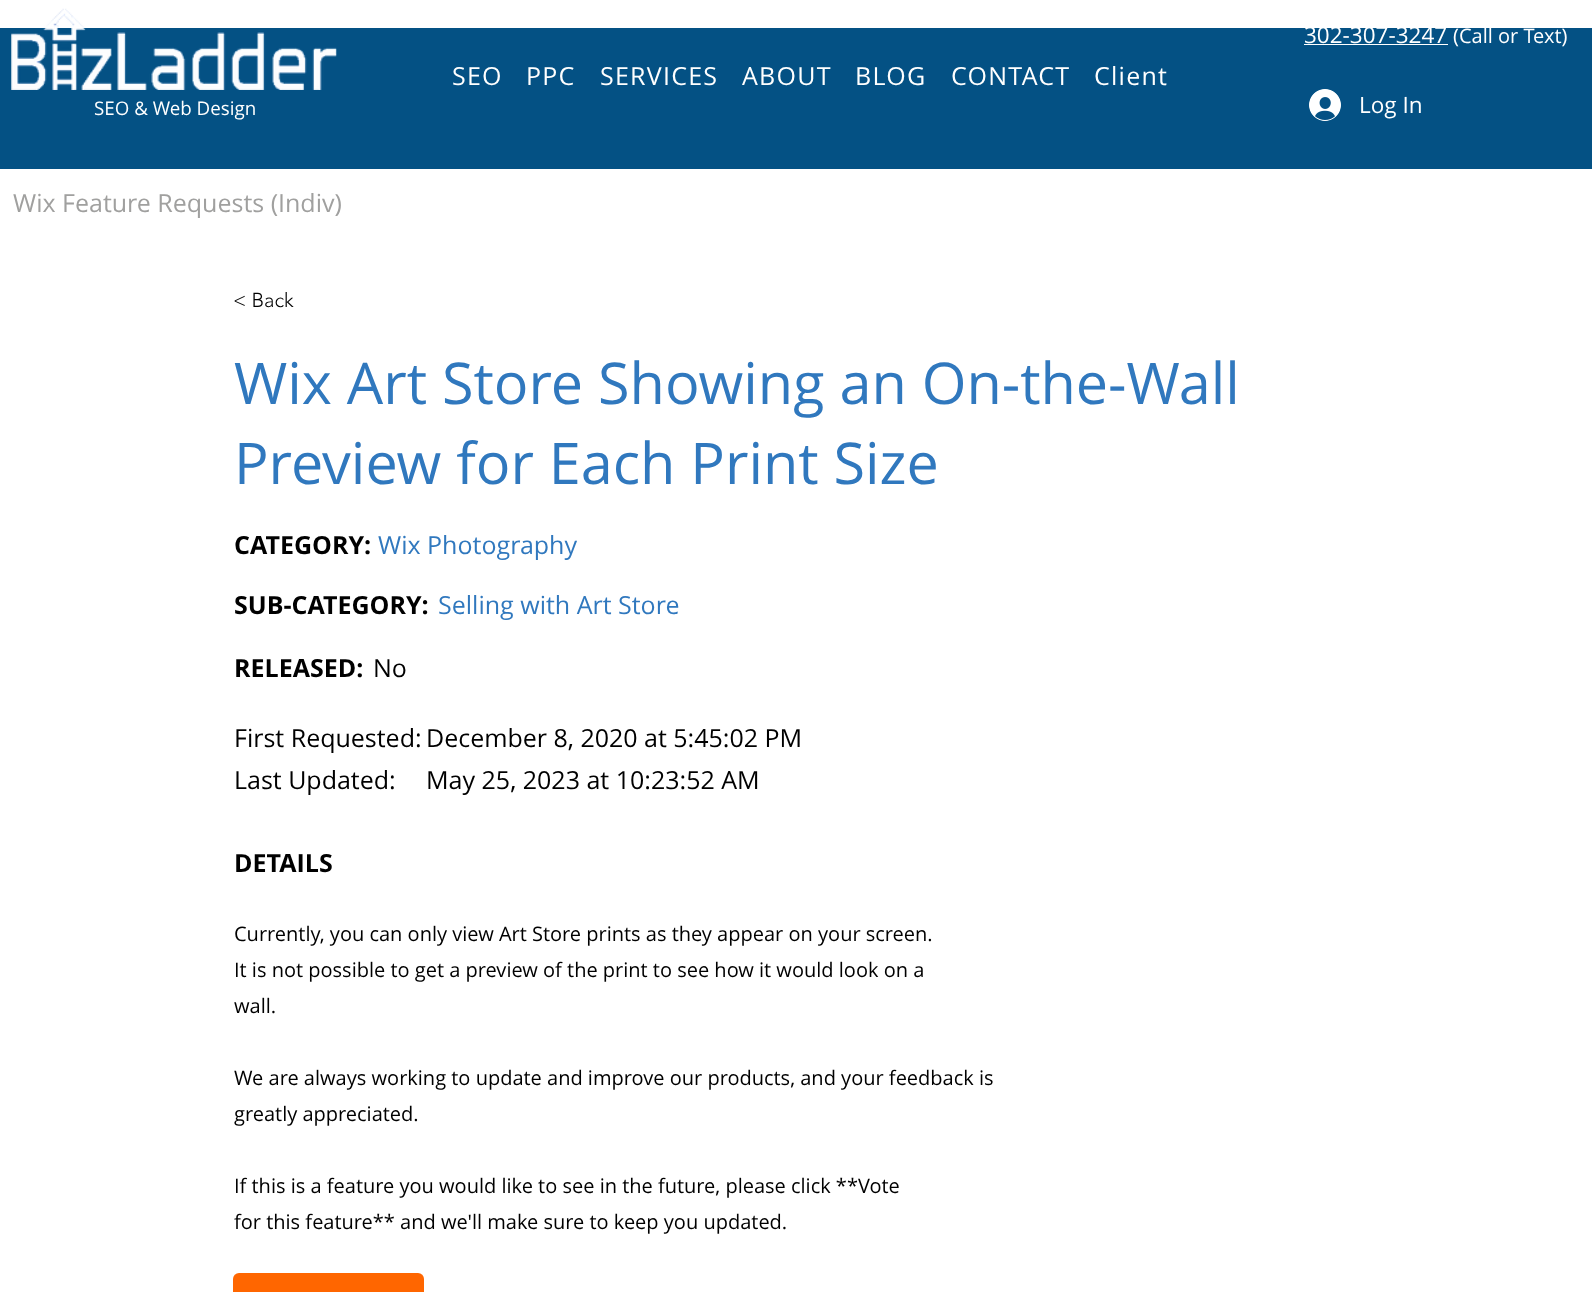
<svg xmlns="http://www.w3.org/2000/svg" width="1592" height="1292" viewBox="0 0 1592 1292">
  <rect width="100%" height="100%" fill="rgb(255,255,255)"/>
  <rect x="0" y="28" width="1592" height="141" fill="rgb(4,81,132)"/>
  <g font-family="Open Sans" font-size="25" letter-spacing="1.25" fill="rgb(255,255,255)">
    <text x="452" y="85">SEO</text>
    <text x="526" y="85">PPC</text>
    <text x="600" y="85">SERVICES</text>
    <text x="742" y="85">ABOUT</text>
    <text x="855" y="85">BLOG</text>
    <text x="951" y="85">CONTACT</text>
    <text x="1094" y="85">Client</text>
  </g>
  <text x="1304" y="43" font-family="Open Sans" font-size="22.5" fill="rgb(255,255,255)">302-307-3247</text>
  <rect x="1304" y="44" width="144" height="1" fill="rgb(255,255,255)"/>
  <text x="1453" y="43" font-family="Open Sans" font-size="20" fill="rgb(255,255,255)">(Call or Text)</text>
  <image x="1309" y="89" width="32" height="32" href="pic1.png"/>
  <text x="1359" y="113" font-family="Open Sans" font-size="22.5" fill="rgb(255,255,255)">Log In</text>
  <image x="11" y="8" width="326" height="82" href="pic2.png"/>
  <text x="94" y="115" font-family="Open Sans" font-size="18.75" fill="rgb(255,255,255)">SEO &amp; Web Design</text>
  <text x="13" y="212" font-family="Open Sans" font-size="25" fill="rgb(160,160,159)">Wix Feature Requests (Indiv)</text>
  <text x="233" y="307" font-family="'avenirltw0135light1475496'" font-size="20" font-weight="300" fill="rgb(0,0,0)">&lt; Back</text>
  <g font-family="Open Sans" font-size="57.5" fill="rgb(48,120,190)">
    <text>
      <tspan x="234" y="404">Wix Art Store Showing an On-the-Wall</tspan>
      <tspan x="234" y="484">Preview for Each Print Size</tspan>
    </text>
  </g>
  <text x="234" y="554" font-family="Open Sans" font-size="25" font-weight="bold" fill="rgb(0,0,0)">CATEGORY:</text>
  <text x="378" y="554" font-family="Open Sans" font-size="25" fill="rgb(48,120,190)">Wix Photography</text>
  <text x="234" y="614" font-family="Open Sans" font-size="25" font-weight="bold" fill="rgb(0,0,0)">SUB-CATEGORY:</text>
  <text x="438" y="614" font-family="Open Sans" font-size="25" fill="rgb(48,120,190)">Selling with Art Store</text>
  <text x="234" y="677" font-family="Open Sans" font-size="25" font-weight="bold" fill="rgb(0,0,0)">RELEASED:</text>
  <g font-family="Open Sans" font-size="25" fill="rgb(0,0,0)">
    <text x="373" y="677">No</text>
    <text x="234" y="747">First Requested:</text>
    <text x="426" y="747">December 8, 2020 at 5:45:02 PM</text>
    <text x="234" y="789">Last Updated:</text>
    <text x="426" y="789">May 25, 2023 at 10:23:52 AM</text>
  </g>
  <text x="234" y="872" font-family="Open Sans" font-size="25" font-weight="bold" fill="rgb(0,0,0)">DETAILS</text>
  <g font-family="Open Sans" font-size="20" fill="rgb(0,0,0)">
    <text>
      <tspan x="234" y="941">Currently, you can only view Art Store prints as they appear on your screen.</tspan>
      <tspan x="234" y="977">It is not possible to get a preview of the print to see how it would look on a</tspan>
      <tspan x="234" y="1013">wall.</tspan>
    </text>
    <text>
      <tspan x="234" y="1085">We are always working to update and improve our products, and your feedback is</tspan>
      <tspan x="234" y="1121">greatly appreciated.</tspan>
    </text>
    <text>
      <tspan x="234" y="1193">If this is a feature you would like to see in the future, please click **Vote</tspan>
      <tspan x="234" y="1229">for this feature** and we'll make sure to keep you updated.</tspan>
    </text>
  </g>
  <rect x="233" y="1273" width="191" height="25" rx="6" fill="rgb(255,102,0)"/>
</svg>
